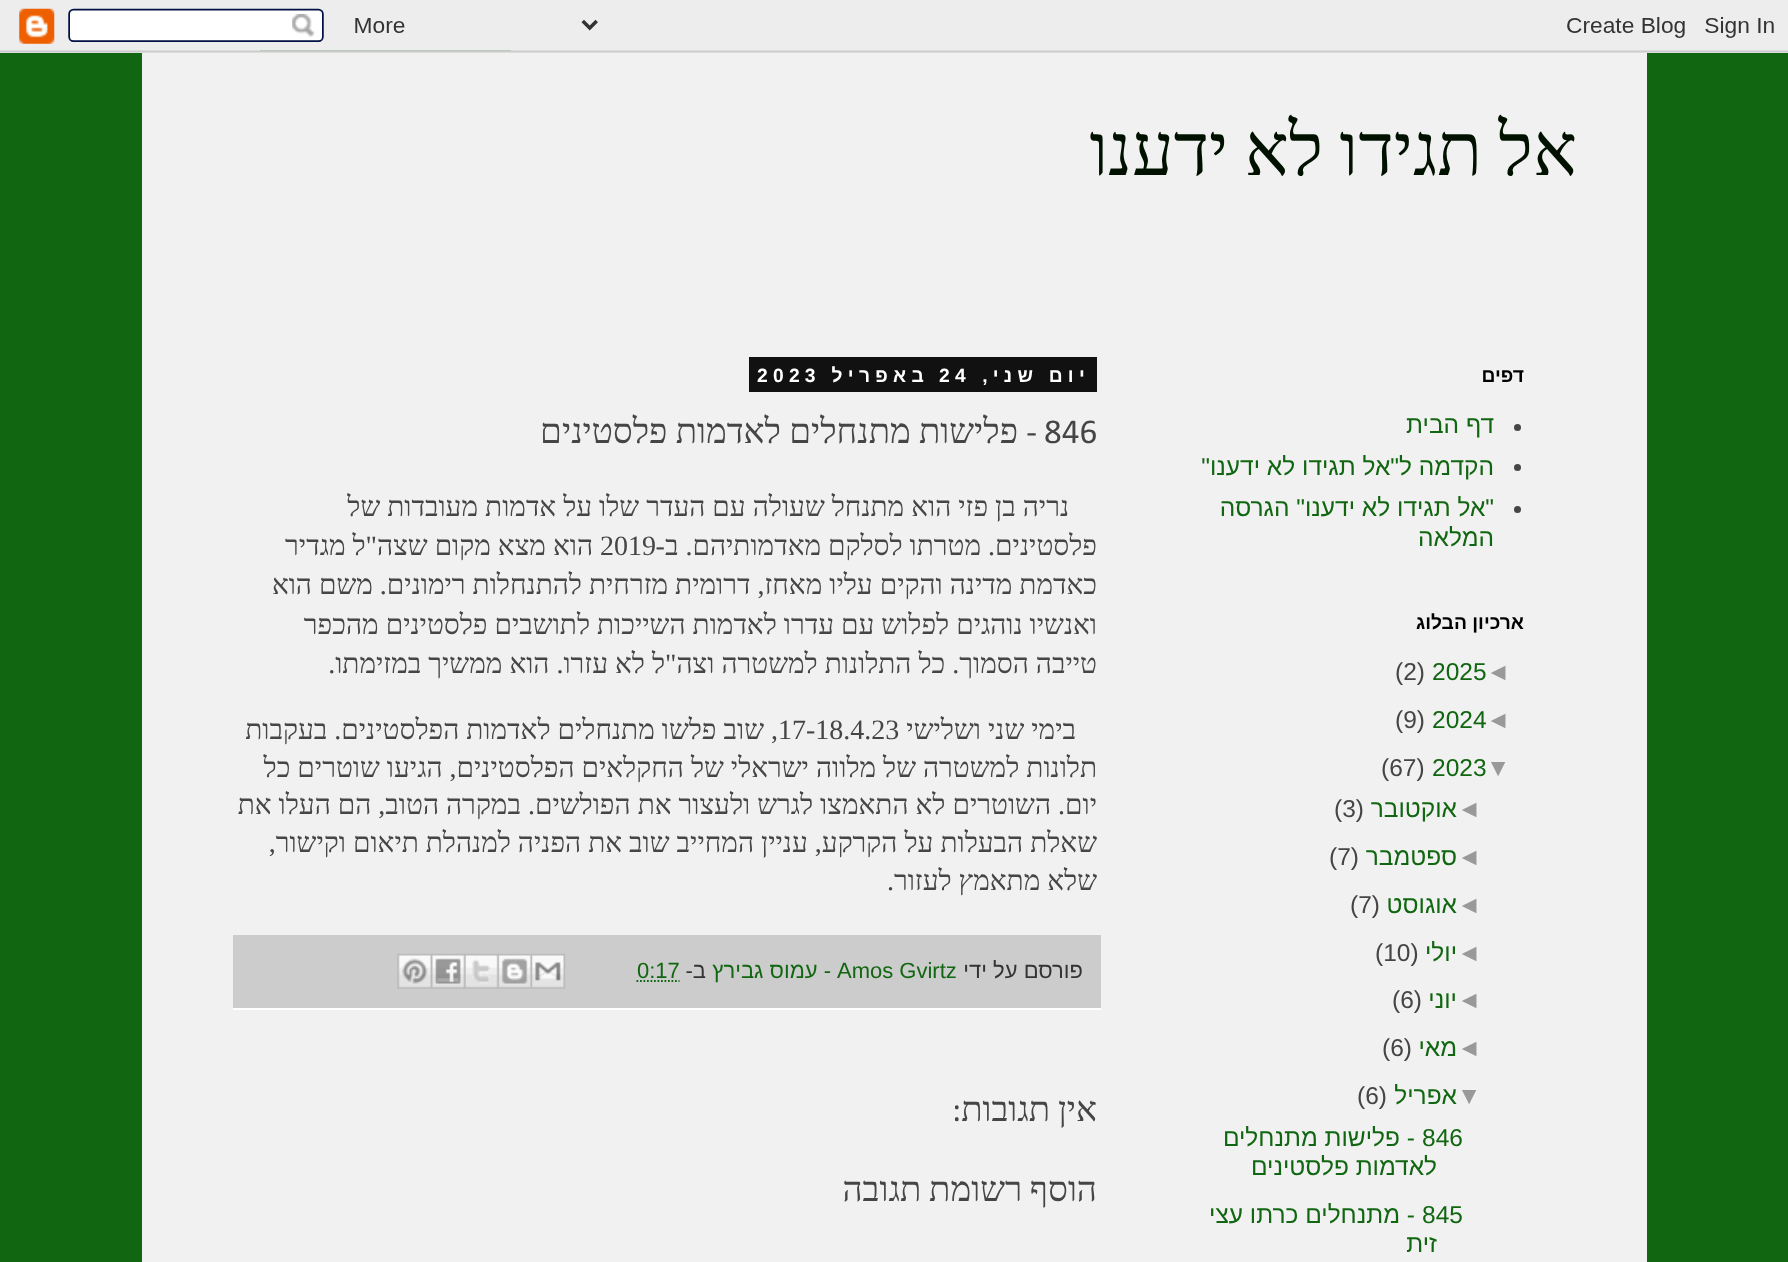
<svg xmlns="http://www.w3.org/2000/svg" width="1788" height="1262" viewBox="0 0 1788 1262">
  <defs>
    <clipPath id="clip1"><rect x="212" y="70" width="1365" height="233"/></clipPath>
  </defs>
  <rect width="100%" height="100%" fill="rgb(17,102,17)"/>
  <image x="0" y="0" width="1788" height="53" href="pic1.png"/>
  <rect x="142" y="53" width="1505" height="1209" fill="rgb(241,241,241)"/>
  <g clip-path="url(#clip1)">
    <text x="1577" y="175" word-spacing="-2" font-family="Liberation Serif" font-size="73.5" direction="rtl" fill="rgb(0,17,0)">אל תגידו לא ידענו</text>
  </g>
  <text x="1524" y="382" font-family="Liberation Sans" font-size="19.25" font-weight="bold" direction="rtl" fill="rgb(0,0,0)">דפים</text>
  <circle cx="1517.5" cy="427.5" r="3.5" fill="rgb(69,69,69)"/>
  <text x="1494" y="433" font-family="Liberation Sans" font-size="24.5" direction="rtl" fill="rgb(17,102,17)">דף הבית</text>
  <circle cx="1517.5" cy="467.5" r="3.5" fill="rgb(69,69,69)"/>
  <text x="1494" y="475" font-family="Liberation Sans" font-size="24.5" direction="rtl" fill="rgb(17,102,17)">הקדמה ל"אל תגידו לא ידענו"</text>
  <circle cx="1517.5" cy="509.5" r="3.5" fill="rgb(69,69,69)"/>
  <g font-family="Liberation Sans" font-size="24.5" direction="rtl" fill="rgb(17,102,17)">
    <text>
      <tspan x="1494" y="516">"אל תגידו לא ידענו" הגרסה</tspan>
      <tspan x="1494" y="546">המלאה</tspan>
    </text>
  </g>
  <text x="1524" y="629" font-family="Liberation Sans" font-size="19.25" font-weight="bold" direction="rtl" fill="rgb(0,0,0)">ארכיון הבלוג</text>
  <text x="1486" y="680" font-family="Liberation Sans" font-size="24.5" fill="rgb(153,153,153)">◄</text>
  <text x="1432" y="680" font-family="Liberation Sans" font-size="24.5" fill="rgb(17,102,17)">2025</text>
  <text x="1395" y="680" font-family="Liberation Sans" font-size="24.5" fill="rgb(69,69,69)">(2)</text>
  <text x="1486" y="728" font-family="Liberation Sans" font-size="24.5" fill="rgb(153,153,153)">◄</text>
  <text x="1432" y="728" font-family="Liberation Sans" font-size="24.5" fill="rgb(17,102,17)">2024</text>
  <text x="1395" y="728" font-family="Liberation Sans" font-size="24.5" fill="rgb(69,69,69)">(9)</text>
  <text x="1486" y="776" font-family="Liberation Sans" font-size="24.5" fill="rgb(153,153,153)">▼</text>
  <text x="1432" y="776" font-family="Liberation Sans" font-size="24.5" fill="rgb(17,102,17)">2023</text>
  <text x="1381" y="776" font-family="Liberation Sans" font-size="24.5" fill="rgb(69,69,69)">(67)</text>
  <text x="1457" y="817" font-family="Liberation Sans" font-size="24.5" fill="rgb(153,153,153)">◄</text>
  <text x="1457" y="817" font-family="Liberation Sans" font-size="24.5" direction="rtl" fill="rgb(17,102,17)">אוקטובר</text>
  <text x="1334" y="817" font-family="Liberation Sans" font-size="24.5" fill="rgb(69,69,69)">(3)</text>
  <text x="1457" y="865" font-family="Liberation Sans" font-size="24.5" fill="rgb(153,153,153)">◄</text>
  <text x="1457" y="865" font-family="Liberation Sans" font-size="24.5" direction="rtl" fill="rgb(17,102,17)">ספטמבר</text>
  <text x="1329" y="865" font-family="Liberation Sans" font-size="24.5" fill="rgb(69,69,69)">(7)</text>
  <text x="1457" y="913" font-family="Liberation Sans" font-size="24.5" fill="rgb(153,153,153)">◄</text>
  <text x="1457" y="913" font-family="Liberation Sans" font-size="24.5" direction="rtl" fill="rgb(17,102,17)">אוגוסט</text>
  <text x="1350" y="913" font-family="Liberation Sans" font-size="24.5" fill="rgb(69,69,69)">(7)</text>
  <text x="1457" y="961" font-family="Liberation Sans" font-size="24.5" fill="rgb(153,153,153)">◄</text>
  <text x="1457" y="961" font-family="Liberation Sans" font-size="24.5" direction="rtl" fill="rgb(17,102,17)">יולי</text>
  <text x="1375" y="961" font-family="Liberation Sans" font-size="24.5" fill="rgb(69,69,69)">(10)</text>
  <text x="1457" y="1008" font-family="Liberation Sans" font-size="24.5" fill="rgb(153,153,153)">◄</text>
  <text x="1457" y="1008" font-family="Liberation Sans" font-size="24.5" direction="rtl" fill="rgb(17,102,17)">יוני</text>
  <text x="1392" y="1008" font-family="Liberation Sans" font-size="24.5" fill="rgb(69,69,69)">(6)</text>
  <text x="1457" y="1056" font-family="Liberation Sans" font-size="24.5" fill="rgb(153,153,153)">◄</text>
  <text x="1457" y="1056" font-family="Liberation Sans" font-size="24.5" direction="rtl" fill="rgb(17,102,17)">מאי</text>
  <text x="1382" y="1056" font-family="Liberation Sans" font-size="24.5" fill="rgb(69,69,69)">(6)</text>
  <text x="1457" y="1104" font-family="Liberation Sans" font-size="24.5" fill="rgb(153,153,153)">▼</text>
  <text x="1457" y="1104" font-family="Liberation Sans" font-size="24.5" direction="rtl" fill="rgb(17,102,17)">אפריל</text>
  <text x="1357" y="1104" font-family="Liberation Sans" font-size="24.5" fill="rgb(69,69,69)">(6)</text>
  <text x="1422" y="1146" font-family="Liberation Sans" font-size="24.5" fill="rgb(17,102,17)">846</text>
  <g font-family="Liberation Sans" font-size="24.5" direction="rtl" fill="rgb(17,102,17)">
    <text x="1415" y="1146">- פלישות מתנחלים</text>
    <text x="1437" y="1175">לאדמות פלסטינים</text>
  </g>
  <text x="1422" y="1223" font-family="Liberation Sans" font-size="24.5" fill="rgb(17,102,17)">845</text>
  <g font-family="Liberation Sans" font-size="24.5" direction="rtl" fill="rgb(17,102,17)">
    <text x="1415" y="1223">- מתנחלים כרתו עצי</text>
    <text x="1437" y="1252">זית</text>
  </g>
  <rect x="749" y="357" width="348" height="35" fill="rgb(17,17,17)"/>
  <text x="1090" y="382" font-family="Liberation Sans" font-size="19.25" font-weight="bold" letter-spacing="5.25" direction="rtl" fill="rgb(255,255,255)">יום שני,</text>
  <text x="939" y="382" font-family="Liberation Sans" font-size="19.25" font-weight="bold" letter-spacing="5.25" fill="rgb(255,255,255)">24</text>
  <text x="929" y="382" font-family="Liberation Sans" font-size="19.25" font-weight="bold" letter-spacing="5.25" direction="rtl" fill="rgb(255,255,255)">באפריל</text>
  <text x="757" y="382" font-family="Liberation Sans" font-size="19.25" font-weight="bold" letter-spacing="5.25" fill="rgb(255,255,255)">2023</text>
  <text x="1044" y="443" font-family="Calibri" font-size="35" fill="rgb(69,69,69)">846</text>
  <text x="1037" y="443" font-family="Calibri" font-size="35" direction="rtl" fill="rgb(69,69,69)">-</text>
  <text x="1018" y="443" word-spacing="-0.5" font-family="Liberation Serif" font-size="35" direction="rtl" fill="rgb(69,69,69)">פלישות מתנחלים לאדמות פלסטינים</text>
  <g font-family="Liberation Serif" font-size="28" direction="rtl" fill="rgb(69,69,69)">
    <text x="1069" y="516">נריה בן פזי הוא מתנחל שעולה עם העדר שלו על אדמות מעובדות של</text>
    <text x="1097" y="555">פלסטינים. מטרתו לסלקם מאדמותיהם. ב-</text>
  </g>
  <text x="600" y="555" font-family="Liberation Serif" font-size="28" fill="rgb(69,69,69)">2019</text>
  <g font-family="Liberation Serif" font-size="28" direction="rtl" fill="rgb(69,69,69)">
    <text x="593" y="555">הוא מצא מקום שצה"ל מגדיר</text>
    <text>
      <tspan x="1097" y="594">כאדמת מדינה והקים עליו מאחז, דרומית מזרחית להתנחלות רימונים. משם הוא</tspan>
      <tspan x="1097" y="634">ואנשיו נוהגים לפלוש עם עדרו לאדמות השייכות לתושבים פלסטינים מהכפר</tspan>
      <tspan x="1097" y="673">טייבה הסמוך. כל התלונות למשטרה וצה"ל לא עזרו. הוא ממשיך במזימתו.</tspan>
    </text>
    <text x="1076" y="739">בימי שני ושלישי</text>
  </g>
  <text x="778" y="739" font-family="Liberation Serif" font-size="28" fill="rgb(69,69,69)">17-18.4.23</text>
  <g font-family="Liberation Serif" font-size="28" direction="rtl" fill="rgb(69,69,69)">
    <text x="778" y="739">, שוב פלשו מתנחלים לאדמות הפלסטינים. בעקבות</text>
    <text>
      <tspan x="1097" y="777">תלונות למשטרה של מלווה ישראלי של החקלאים הפלסטינים, הגיעו שוטרים כל</tspan>
      <tspan x="1097" y="814">יום. השוטרים לא התאמצו לגרש ולעצור את הפולשים. במקרה הטוב, הם העלו את</tspan>
      <tspan x="1097" y="852">שאלת הבעלות על הקרקע, עניין המחייב שוב את הפניה למנהלת תיאום וקישור,</tspan>
      <tspan x="1097" y="890">שלא מתאמץ לעזור.</tspan>
    </text>
  </g>
  <rect x="233" y="935" width="868" height="73" fill="rgb(204,204,204)"/>
  <rect x="233" y="1008" width="868" height="2" fill="rgb(255,255,255)"/>
  <text x="1083" y="978" font-family="Liberation Sans" font-size="22" direction="rtl" fill="rgb(51,51,51)">פורסם על ידי</text>
  <text x="837" y="978" font-family="Liberation Sans" font-size="22" fill="rgb(17,102,17)">Amos Gvirtz</text>
  <text x="831" y="978" font-family="Liberation Sans" font-size="22" direction="rtl" fill="rgb(17,102,17)">- עמוס גבירץ</text>
  <text x="706" y="978" font-family="Liberation Sans" font-size="22" direction="rtl" fill="rgb(51,51,51)">ב-</text>
  <text x="637" y="978" font-family="Liberation Sans" font-size="22" fill="rgb(17,102,17)">0:17</text>
  <path d="M636.5 981H679.5" fill="none" stroke="rgb(17,102,17)" stroke-width="1.8" stroke-dasharray="1.75 1.75"/>
  <image x="531" y="953" width="35" height="36" href="pic2.png"/>
  <image x="497" y="953" width="35" height="36" href="pic3.png"/>
  <image x="463" y="953" width="36" height="36" href="pic4.png"/>
  <image x="430" y="953" width="36" height="36" href="pic5.png"/>
  <image x="397" y="953" width="36" height="36" href="pic6.png"/>
  <text x="1097" y="1121" word-spacing="-1" font-family="Liberation Serif" font-size="35" direction="rtl" fill="rgb(69,69,69)">אין תגובות</text>
  <text x="961" y="1121" font-family="Calibri" font-size="35" direction="rtl" fill="rgb(69,69,69)">:</text>
  <text x="1097" y="1201" word-spacing="-1" font-family="Liberation Serif" font-size="35" direction="rtl" fill="rgb(69,69,69)">הוסף רשומת תגובה</text>
</svg>
